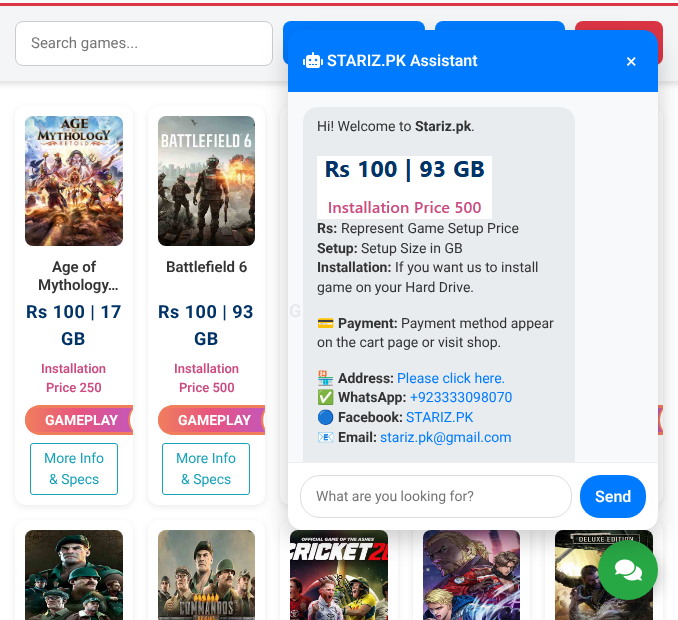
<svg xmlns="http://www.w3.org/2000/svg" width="678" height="620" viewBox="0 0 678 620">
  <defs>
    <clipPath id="clip1"><rect x="25" y="405" width="138" height="30" rx="15"/></clipPath>
    <linearGradient id="g1" gradientUnits="userSpaceOnUse" x1="25" y1="420" x2="133" y2="420"><stop offset="0" stop-color="rgb(240,126,92)"/><stop offset="0.5" stop-color="rgb(231,84,128)"/><stop offset="1" stop-color="rgb(196,87,185)"/></linearGradient>
    <clipPath id="clip2"><rect x="158" y="405" width="138" height="30" rx="15"/></clipPath>
    <linearGradient id="g2" gradientUnits="userSpaceOnUse" x1="158" y1="420" x2="266" y2="420"><stop offset="0" stop-color="rgb(240,126,92)"/><stop offset="0.5" stop-color="rgb(231,84,128)"/><stop offset="1" stop-color="rgb(196,87,185)"/></linearGradient>
    <linearGradient id="g3" gradientUnits="userSpaceOnUse" x1="555" y1="420" x2="663" y2="420"><stop offset="0" stop-color="rgb(240,126,92)"/><stop offset="0.5" stop-color="rgb(231,84,128)"/><stop offset="1" stop-color="rgb(196,87,185)"/></linearGradient>
    <clipPath id="clip3"><rect x="288" y="92" width="370" height="370"/></clipPath>
  </defs>
  <rect width="100%" height="100%" fill="rgb(255,255,255)"/>
  <rect x="0" y="0" width="678" height="3" fill="rgb(248,249,250)"/>
  <rect x="0" y="3" width="678" height="3" fill="rgb(220,53,69)"/>
  <rect x="-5" y="10" width="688" height="75" fill="rgba(0,0,0,0.1)" filter="blur(2.5px)"/>
  <rect x="0" y="6" width="678" height="75" fill="rgb(244,245,247)"/>
  <rect x="15.5" y="21.5" width="257" height="44" rx="7.5" fill="rgb(255,255,255)" stroke="rgb(204,204,204)"/>
  <text x="31" y="48" font-family="Roboto" font-size="15" fill="rgb(117,117,117)">Search games...</text>
  <rect x="283" y="21" width="142" height="44" rx="8" fill="rgb(0,123,255)"/>
  <rect x="435" y="21" width="130" height="44" rx="8" fill="rgb(0,123,255)"/>
  <rect x="575" y="21" width="88" height="44" rx="8" fill="rgb(220,53,69)"/>
  <rect x="15" y="108" width="118" height="399" rx="10" fill="rgba(0,0,0,0.08)" filter="blur(3px)"/>
  <rect x="15" y="106" width="118" height="399" rx="10" fill="rgb(255,255,255)"/>
  <image x="25" y="116" width="98" height="130" href="pic1.png"/>
  <g font-family="Roboto" font-size="15" font-weight="600" fill="rgb(51,51,51)">
    <text x="52" y="272">Age of</text>
    <text x="38" y="290">Mythology…</text>
  </g>
  <g font-family="Roboto" font-size="18" font-weight="bold" letter-spacing="0.5" fill="rgb(0,51,102)">
    <text x="26" y="318">Rs 100 | 17</text>
    <text x="61" y="345">GB</text>
  </g>
  <g font-family="Roboto" font-size="13" font-weight="600" fill="rgb(204,76,130)">
    <text x="41" y="373">Installation</text>
    <text x="46" y="392">Price 250</text>
  </g>
  <path d="M40 405H133V435H40C31.5 435 25 428.5 25 420C25 411.5 31.5 405 40 405Z" fill="rgb(240,126,92)"/>
  <g clip-path="url(#clip1)">
    <rect x="25" y="408" width="108" height="24" fill="url(#g1)"/>
  </g>
  <text x="45" y="425" font-family="Roboto" font-size="14" font-weight="bold" fill="rgb(255,255,255)">GAMEPLAY</text>
  <path d="M133 407V433C126.5 426 126.5 414 133 407Z" fill="rgb(240,126,92)"/>
  <path d="M133 410V430C129 424 129 416 133 410Z" fill="rgb(255,255,255)"/>
  <rect x="30.5" y="443.5" width="87" height="51" rx="2.5" fill="none" stroke="rgb(23,162,184)"/>
  <g font-family="Roboto" font-size="14" fill="rgb(23,162,184)">
    <text x="44" y="463">More Info</text>
    <text x="49" y="484">&amp; Specs</text>
  </g>
  <rect x="148" y="108" width="117" height="399" rx="10" fill="rgba(0,0,0,0.08)" filter="blur(3px)"/>
  <rect x="148" y="106" width="117" height="399" rx="10" fill="rgb(255,255,255)"/>
  <image x="158" y="116" width="97" height="130" href="pic2.png"/>
  <text x="166" y="272" font-family="Roboto" font-size="15" font-weight="600" fill="rgb(51,51,51)">Battlefield 6</text>
  <g font-family="Roboto" font-size="18" font-weight="bold" letter-spacing="0.5" fill="rgb(0,51,102)">
    <text x="158" y="318">Rs 100 | 93</text>
    <text x="194" y="345">GB</text>
  </g>
  <g font-family="Roboto" font-size="13" font-weight="600" fill="rgb(204,76,130)">
    <text x="174" y="373">Installation</text>
    <text x="179" y="392">Price 500</text>
  </g>
  <path d="M173 405H265V435H173C164.5 435 158 428.5 158 420C158 411.5 164.5 405 173 405Z" fill="rgb(240,126,92)"/>
  <g clip-path="url(#clip2)">
    <rect x="158" y="408" width="107" height="24" fill="url(#g2)"/>
  </g>
  <text x="178" y="425" font-family="Roboto" font-size="14" font-weight="bold" fill="rgb(255,255,255)">GAMEPLAY</text>
  <path d="M265 408C259.5 415 259.5 425 265 432Z" fill="rgb(240,126,92)"/>
  <path d="M265 411.5C262.5 417 262.5 423 265 428.5Z" fill="rgb(255,255,255)"/>
  <rect x="162.5" y="443.5" width="87" height="51" rx="2.5" fill="none" stroke="rgb(23,162,184)"/>
  <g font-family="Roboto" font-size="14" fill="rgb(23,162,184)">
    <text x="176" y="463">More Info</text>
    <text x="181" y="484">&amp; Specs</text>
  </g>
  <rect x="280" y="108" width="118" height="399" rx="10" fill="rgba(0,0,0,0.08)" filter="blur(3px)"/>
  <rect x="280" y="106" width="118" height="399" rx="10" fill="rgb(255,255,255)"/>
  <rect x="545" y="108" width="118" height="399" rx="10" fill="rgba(0,0,0,0.08)" filter="blur(3px)"/>
  <rect x="545" y="106" width="118" height="399" rx="10" fill="rgb(255,255,255)"/>
  <rect x="658" y="405" width="5" height="30" fill="rgb(240,126,92)"/>
  <rect x="658" y="408" width="5" height="24" fill="url(#g3)"/>
  <path d="M663 407V433C656.5 426 656.5 414 663 407Z" fill="rgb(240,126,92)"/>
  <path d="M663 410V430C659 424 659 416 663 410Z" fill="rgb(255,255,255)"/>
  <rect x="15" y="522" width="118" height="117" rx="10" fill="rgba(0,0,0,0.08)" filter="blur(3px)"/>
  <rect x="15" y="520" width="118" height="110" rx="10" fill="rgb(255,255,255)"/>
  <image x="25" y="530" width="98" height="90" href="pic3.png"/>
  <rect x="148" y="522" width="117" height="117" rx="10" fill="rgba(0,0,0,0.08)" filter="blur(3px)"/>
  <rect x="148" y="520" width="117" height="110" rx="10" fill="rgb(255,255,255)"/>
  <image x="158" y="530" width="97" height="90" href="pic4.png"/>
  <rect x="280" y="522" width="118" height="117" rx="10" fill="rgba(0,0,0,0.08)" filter="blur(3px)"/>
  <rect x="280" y="520" width="118" height="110" rx="10" fill="rgb(255,255,255)"/>
  <image x="290" y="530" width="98" height="90" href="pic5.png"/>
  <rect x="413" y="522" width="117" height="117" rx="10" fill="rgba(0,0,0,0.08)" filter="blur(3px)"/>
  <rect x="413" y="530" width="117" height="90" fill="rgb(255,255,255)"/>
  <image x="423" y="530" width="97" height="90" href="pic6.png"/>
  <rect x="545" y="522" width="118" height="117" rx="10" fill="rgba(0,0,0,0.08)" filter="blur(3px)"/>
  <rect x="545" y="520" width="118" height="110" rx="10" fill="rgb(255,255,255)"/>
  <image x="555" y="530" width="98" height="90" href="pic7.png"/>
  <rect x="598" y="544" width="60" height="60" rx="30" fill="rgba(0,0,0,0.3)" filter="blur(7.5px)"/>
  <circle cx="628" cy="570" r="30" fill="rgb(40,167,69)"/>
  <image x="615" y="559" width="27" height="22" href="pic10.png"/>
  <rect x="288" y="40" width="370" height="500" rx="15" fill="rgba(0,0,0,0.2)" filter="blur(12.5px)"/>
  <rect x="288" y="92" width="370" height="370" fill="rgb(248,249,250)"/>
  <text x="289" y="317" font-family="Roboto" font-size="18" font-weight="bold" fill="rgb(231,233,236)">G</text>
  <path d="M303 30H643C651.5 30 658 36.5 658 45V92H288V45C288 36.5 294.5 30 303 30Z" fill="rgb(0,123,255)"/>
  <image x="303" y="52" width="21" height="16" href="pic8.png"/>
  <text x="327" y="66" font-family="Roboto" font-size="16" font-weight="600" fill="rgb(255,255,255)">STARIZ.PK Assistant</text>
  <text x="626" y="68" font-family="Roboto" font-size="20" fill="rgb(255,255,255)">×</text>
  <path d="M288 462H658V515C658 523.5 651.5 530 643 530H303C294.5 530 288 523.5 288 515Z" fill="rgb(255,255,255)"/>
  <rect x="288" y="462" width="370" height="1" fill="rgb(238,238,238)"/>
  <g clip-path="url(#clip3)">
    <path d="M318 107H560C568.5 107 575 113.5 575 122V458C575 466.5 568.5 473 560 473H305C304 473 303 472 303 471V122C303 113.5 309.5 107 318 107Z" fill="rgb(233,236,239)"/>
  </g>
  <text x="317" y="131" font-family="Roboto" font-size="14" fill="rgb(51,51,51)">Hi! Welcome to</text>
  <text x="415" y="131" font-family="Roboto" font-size="14" font-weight="bold" fill="rgb(51,51,51)">Stariz.pk</text>
  <text x="471" y="131" font-family="Roboto" font-size="14" fill="rgb(51,51,51)">.</text>
  <image x="317" y="156" width="175" height="63" href="pic9.png"/>
  <text x="317" y="233" font-family="Roboto" font-size="14" font-weight="bold" fill="rgb(51,51,51)">Rs:</text>
  <text x="341" y="233" font-family="Roboto" font-size="14" fill="rgb(51,51,51)">Represent Game Setup Price</text>
  <text x="317" y="253" font-family="Roboto" font-size="14" font-weight="bold" fill="rgb(51,51,51)">Setup:</text>
  <text x="361" y="253" font-family="Roboto" font-size="14" fill="rgb(51,51,51)">Setup Size in GB</text>
  <text x="317" y="272" font-family="Roboto" font-size="14" font-weight="bold" fill="rgb(51,51,51)">Installation:</text>
  <g font-family="Roboto" font-size="14" fill="rgb(51,51,51)">
    <text x="395" y="272">If you want us to install</text>
    <text x="317" y="292">game on your Hard Drive.</text>
  </g>
  <text x="317" y="328" font-family="Noto Color Emoji" font-size="14" fill="rgb(51,51,51)">💳</text>
  <text x="338" y="328" font-family="Roboto" font-size="14" font-weight="bold" fill="rgb(51,51,51)">Payment:</text>
  <g font-family="Roboto" font-size="14" fill="rgb(51,51,51)">
    <text x="401" y="328">Payment method appear</text>
    <text x="317" y="347">on the cart page or visit shop.</text>
  </g>
  <text x="317" y="383" font-family="Noto Color Emoji" font-size="14" fill="rgb(51,51,51)">🏪</text>
  <text x="338" y="383" font-family="Roboto" font-size="14" font-weight="bold" fill="rgb(51,51,51)">Address:</text>
  <text x="397" y="383" font-family="Roboto" font-size="14" fill="rgb(0,123,255)">Please click here.</text>
  <text x="317" y="402" font-family="Noto Color Emoji" font-size="14" fill="rgb(51,51,51)">✅</text>
  <text x="338" y="402" font-family="Roboto" font-size="14" font-weight="bold" fill="rgb(51,51,51)">WhatsApp:</text>
  <text x="410" y="402" font-family="Roboto" font-size="14" fill="rgb(0,123,255)">+923333098070</text>
  <text x="317" y="422" font-family="Noto Color Emoji" font-size="14" fill="rgb(51,51,51)">🔵</text>
  <text x="338" y="422" font-family="Roboto" font-size="14" font-weight="bold" fill="rgb(51,51,51)">Facebook:</text>
  <text x="406" y="422" font-family="Roboto" font-size="14" fill="rgb(0,123,255)">STARIZ.PK</text>
  <text x="317" y="442" font-family="Noto Color Emoji" font-size="14" fill="rgb(51,51,51)">📧</text>
  <text x="338" y="442" font-family="Roboto" font-size="14" font-weight="bold" fill="rgb(51,51,51)">Email:</text>
  <text x="380" y="442" font-family="Roboto" font-size="14" fill="rgb(0,123,255)">stariz.pk@gmail.com</text>
  <rect x="300.5" y="475.5" width="271" height="42" rx="19.5" fill="none" stroke="rgb(221,221,221)"/>
  <text x="316" y="501" font-family="Roboto" font-size="14" fill="rgb(117,117,117)">What are you looking for?</text>
  <rect x="580" y="475" width="66" height="43" rx="20" fill="rgb(0,123,255)"/>
  <text x="595" y="502" font-family="Roboto" font-size="16" font-weight="600" fill="rgb(255,255,255)">Send</text>
</svg>
